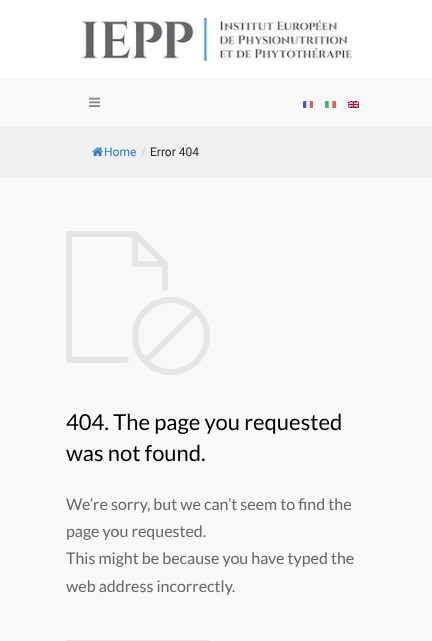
<svg xmlns="http://www.w3.org/2000/svg" width="432" height="641" viewBox="0 0 432 641">
  <rect width="100%" height="100%" fill="rgb(248,248,248)"/>
  <rect x="0" y="0" width="432" height="79" fill="rgb(255,255,255)"/>
  <image x="82" y="18" width="270" height="43" href="pic1.png"/>
  <image x="89" y="97" width="12" height="10" href="pic2.png"/>
  <image x="303" y="101" width="10" height="7" href="pic3.png"/>
  <image x="325" y="101" width="11" height="7" href="pic4.png"/>
  <image x="348" y="101" width="11" height="7" href="pic5.png"/>
  <rect x="0" y="126" width="432" height="52" fill="rgb(238,239,240)"/>
  <image x="92" y="147" width="11" height="9" href="pic6.png"/>
  <text x="104" y="156" font-family="Roboto" font-size="12" fill="rgb(51,122,183)">Home</text>
  <text x="141" y="156" font-family="Roboto" font-size="12" fill="rgb(204,204,204)">/</text>
  <text x="150" y="156" font-family="Roboto" font-size="12" fill="rgb(39,39,42)">Error 404</text>
  <image x="66" y="231" width="144" height="144" href="pic7.png"/>
  <g font-family="Lato" font-size="22" fill="rgb(0,0,0)">
    <text>
      <tspan x="66" y="430">404. The page you requested</tspan>
      <tspan x="66" y="461">was not found.</tspan>
    </text>
  </g>
  <g font-family="Lato" font-size="16" fill="rgb(102,102,102)">
    <text>
      <tspan x="66" y="510">We’re sorry, but we can’t seem to find the</tspan>
      <tspan x="66" y="537">page you requested.</tspan>
      <tspan x="66" y="564">This might be because you have typed the</tspan>
      <tspan x="66" y="592">web address incorrectly.</tspan>
    </text>
  </g>
  <rect x="66.5" y="640.5" width="142" height="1" fill="none" stroke="rgb(229,229,229)"/>
</svg>
